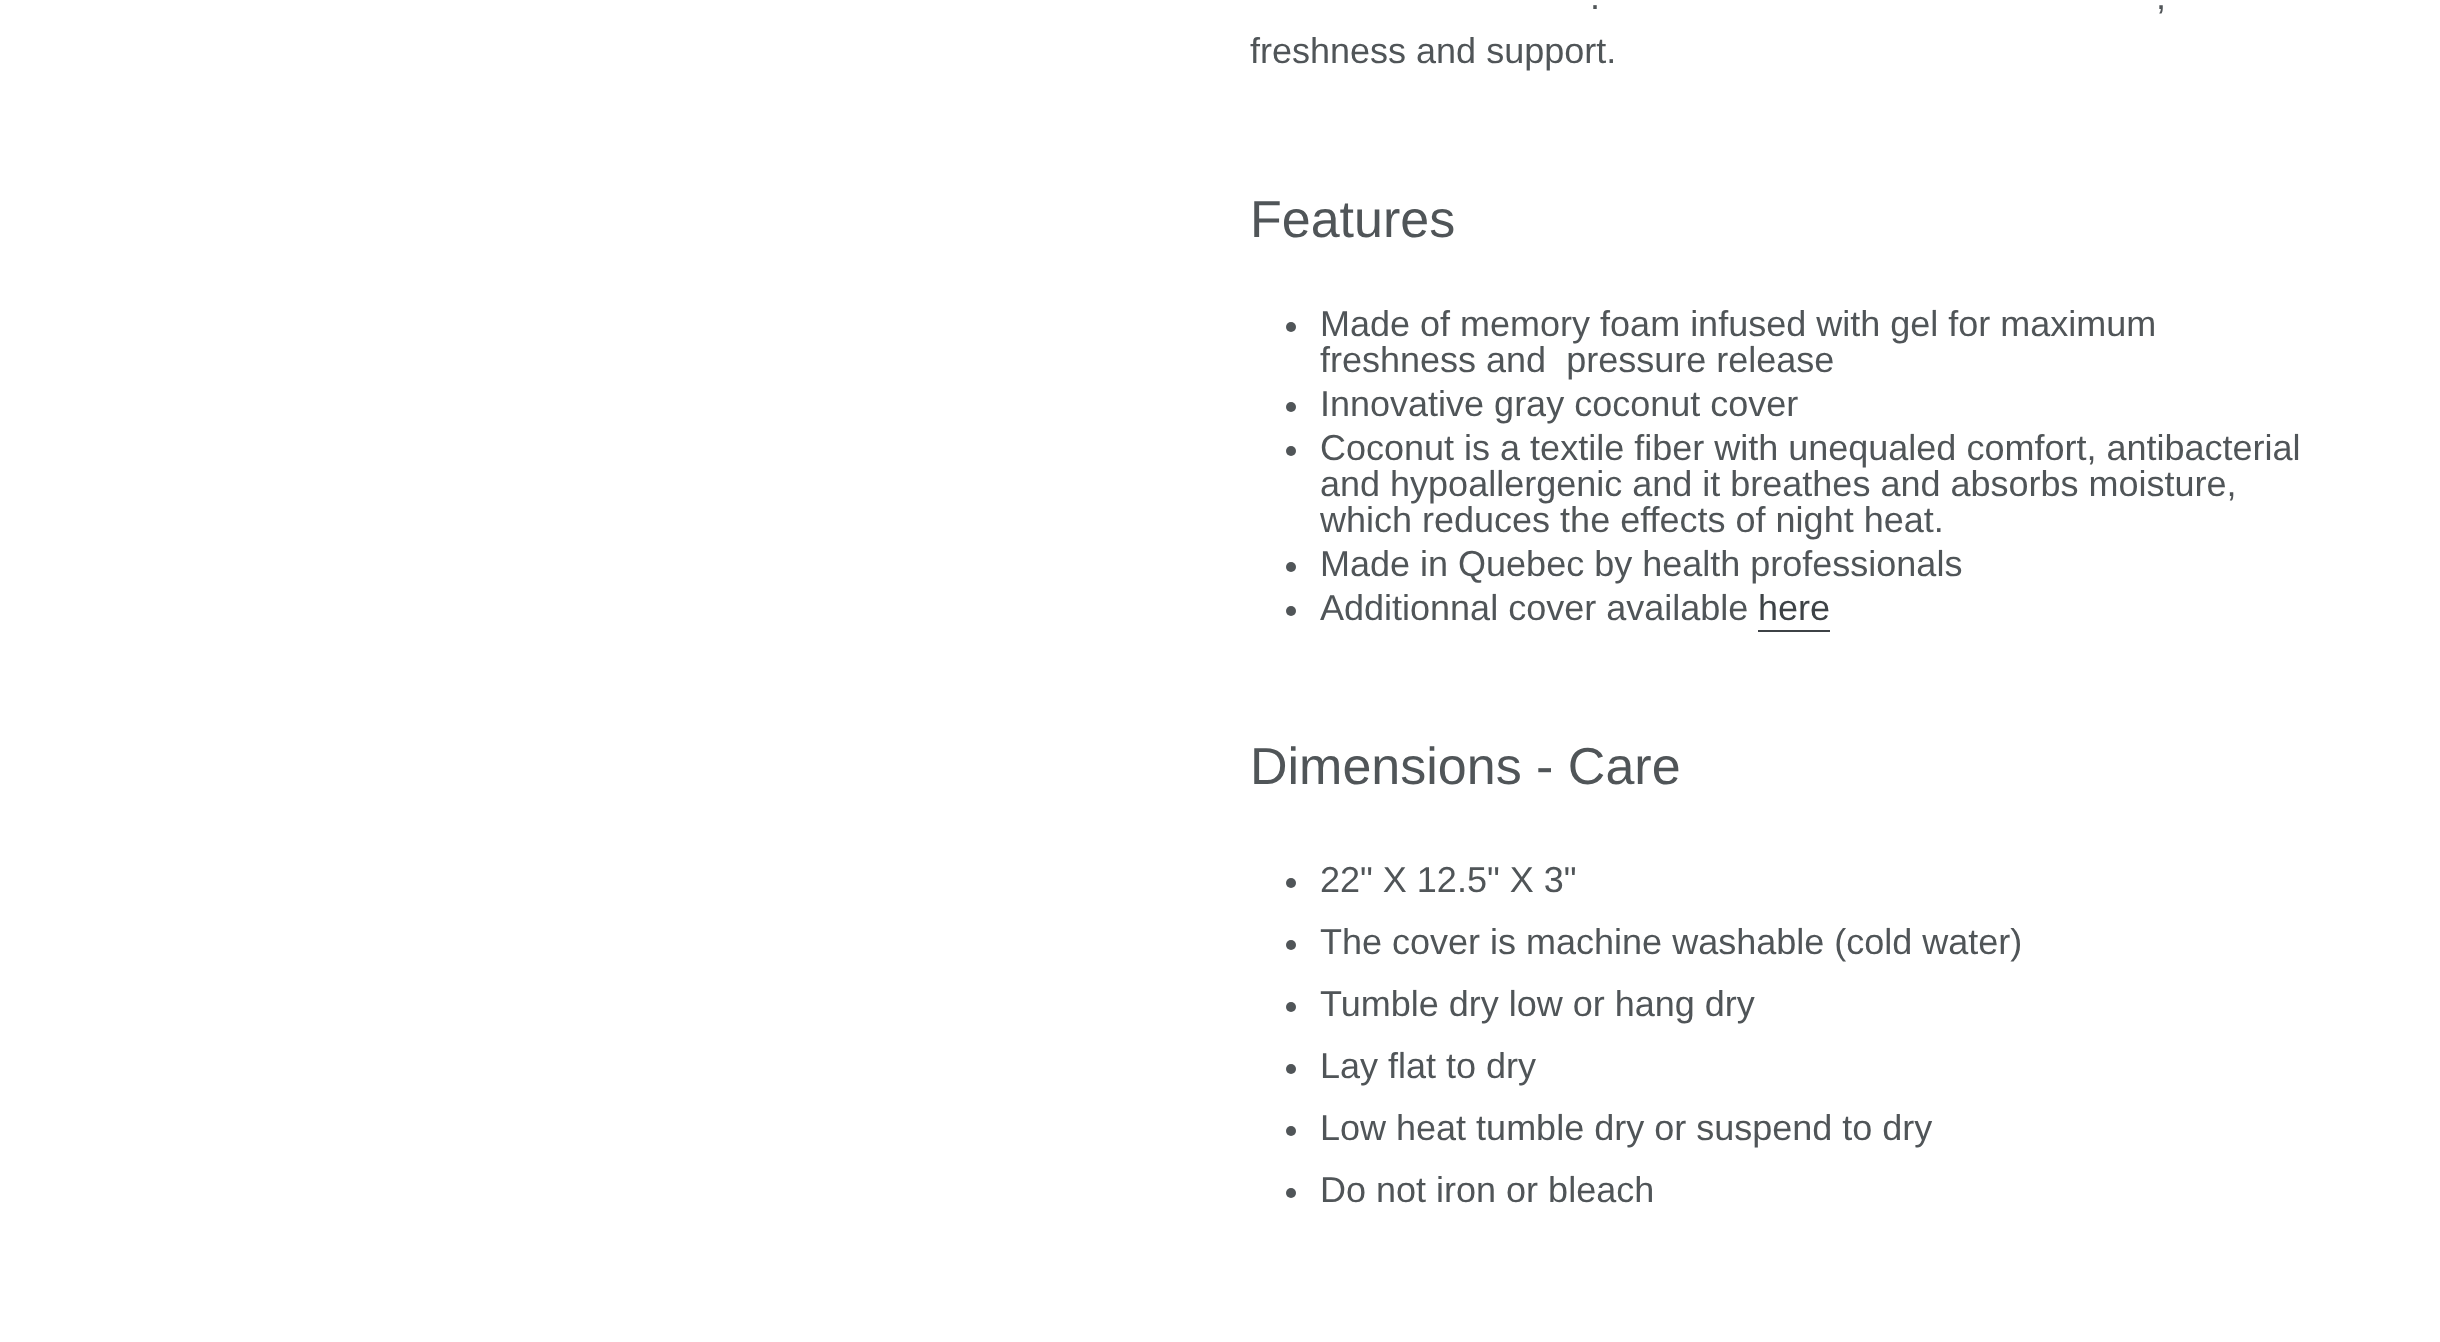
<svg xmlns="http://www.w3.org/2000/svg" width="2440" height="1342" viewBox="0 0 2440 1342">
  <rect width="100%" height="100%" fill="rgb(255,255,255)"/>
  <g font-family="Liberation Sans" font-size="36" fill="rgb(80,85,88)">
    <text x="1590" y="9">.</text>
    <text x="2156" y="9">,</text>
    <text x="1250" y="63">freshness and support.</text>
  </g>
  <text x="1250" y="237" font-family="Liberation Sans" font-size="52" fill="rgb(80,85,88)">Features</text>
  <circle cx="1291" cy="327" r="5" fill="rgb(80,85,88)"/>
  <g font-family="Liberation Sans" font-size="36" fill="rgb(80,85,88)">
    <text xml:space="preserve"><tspan x="1320" y="336">Made of memory foam infused with gel for maximum</tspan><tspan x="1320" y="372">freshness and  pressure release</tspan></text>
  </g>
  <circle cx="1291" cy="407" r="5" fill="rgb(80,85,88)"/>
  <text x="1320" y="416" font-family="Liberation Sans" font-size="36" fill="rgb(80,85,88)">Innovative gray coconut cover</text>
  <circle cx="1291" cy="451" r="5" fill="rgb(80,85,88)"/>
  <g font-family="Liberation Sans" font-size="36" fill="rgb(80,85,88)">
    <text>
      <tspan x="1320" y="460">Coconut is a textile fiber with unequaled comfort, antibacterial</tspan>
      <tspan x="1320" y="496">and hypoallergenic and it breathes and absorbs moisture,</tspan>
      <tspan x="1320" y="532">which reduces the effects of night heat.</tspan>
    </text>
  </g>
  <circle cx="1291" cy="567" r="5" fill="rgb(80,85,88)"/>
  <text x="1320" y="576" font-family="Liberation Sans" font-size="36" fill="rgb(80,85,88)">Made in Quebec by health professionals</text>
  <circle cx="1291" cy="611" r="5" fill="rgb(80,85,88)"/>
  <text x="1320" y="620" font-family="Liberation Sans" font-size="36" fill="rgb(80,85,88)">Additionnal cover available</text>
  <text x="1758" y="620" font-family="Liberation Sans" font-size="36" fill="rgb(61,66,70)">here</text>
  <rect x="1758" y="630" width="72" height="2" fill="rgb(61,66,70)"/>
  <text x="1250" y="784" font-family="Liberation Sans" font-size="52" fill="rgb(80,85,88)">Dimensions - Care</text>
  <circle cx="1291" cy="883" r="5" fill="rgb(80,85,88)"/>
  <text x="1320" y="892" font-family="Liberation Sans" font-size="36" fill="rgb(80,85,88)">22" X 12.5" X 3"</text>
  <circle cx="1291" cy="945" r="5" fill="rgb(80,85,88)"/>
  <text x="1320" y="954" font-family="Liberation Sans" font-size="36" fill="rgb(80,85,88)">The cover is machine washable (cold water)</text>
  <circle cx="1291" cy="1007" r="5" fill="rgb(80,85,88)"/>
  <text x="1320" y="1016" font-family="Liberation Sans" font-size="36" fill="rgb(80,85,88)">Tumble dry low or hang dry</text>
  <circle cx="1291" cy="1069" r="5" fill="rgb(80,85,88)"/>
  <text x="1320" y="1078" font-family="Liberation Sans" font-size="36" fill="rgb(80,85,88)">Lay flat to dry</text>
  <circle cx="1291" cy="1131" r="5" fill="rgb(80,85,88)"/>
  <text x="1320" y="1140" font-family="Liberation Sans" font-size="36" fill="rgb(80,85,88)">Low heat tumble dry or suspend to dry</text>
  <circle cx="1291" cy="1193" r="5" fill="rgb(80,85,88)"/>
  <text x="1320" y="1202" font-family="Liberation Sans" font-size="36" fill="rgb(80,85,88)">Do not iron or bleach</text>
</svg>
